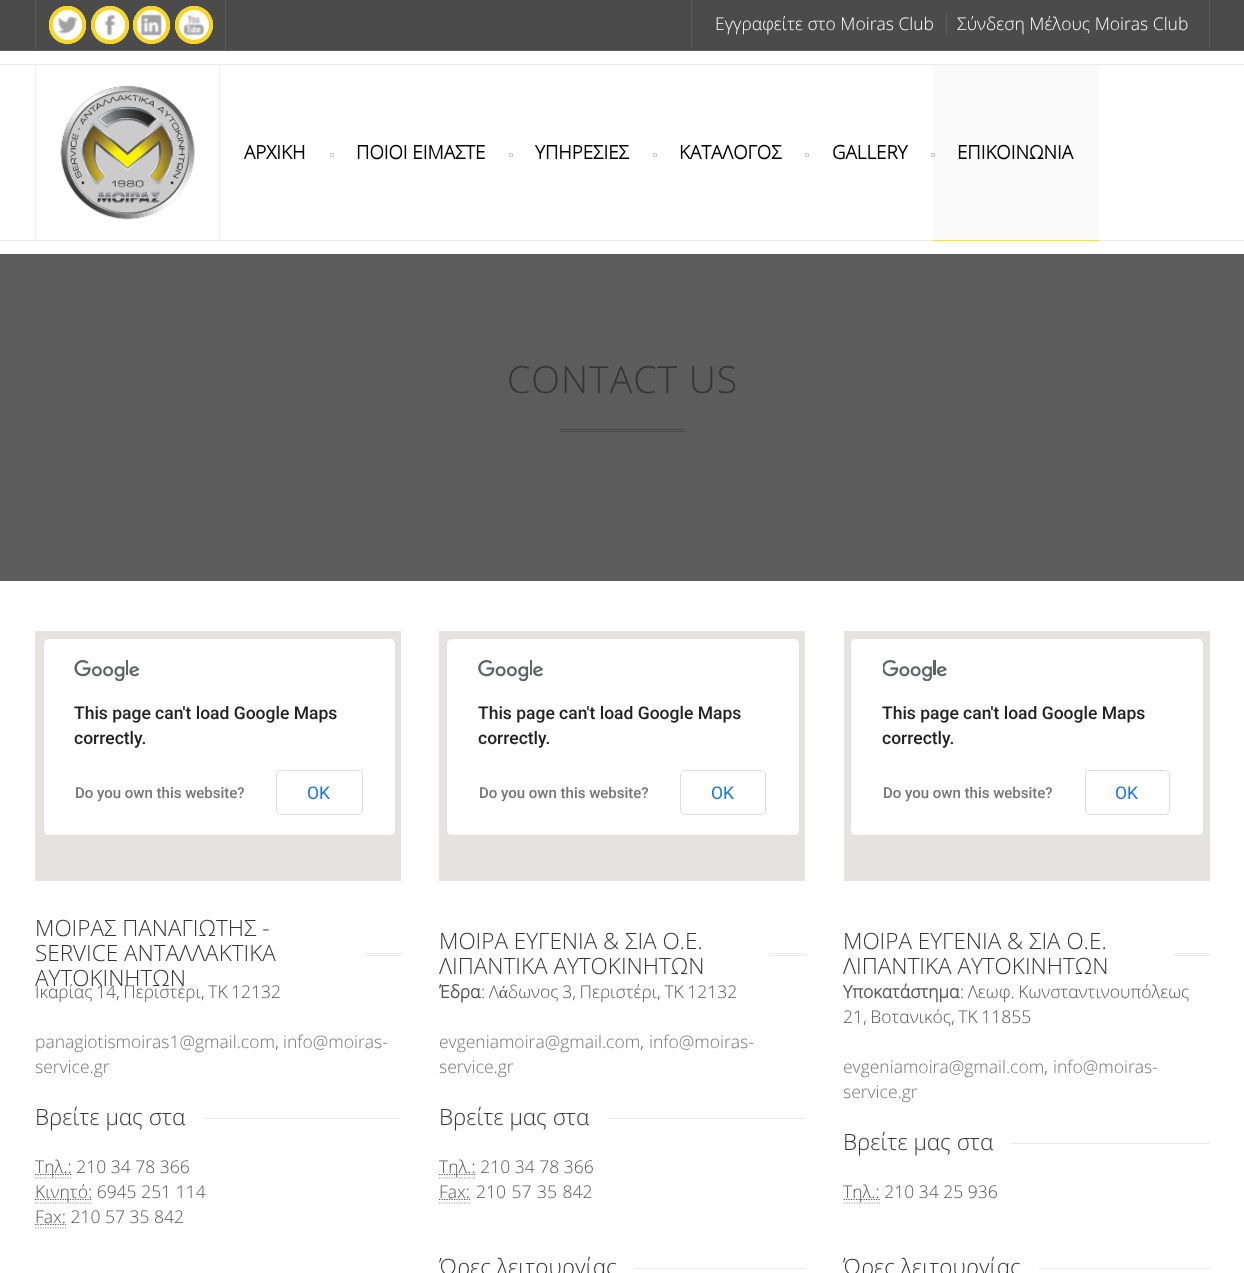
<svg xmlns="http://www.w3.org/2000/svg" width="1244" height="1273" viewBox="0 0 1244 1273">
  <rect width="100%" height="100%" fill="rgb(255,255,255)"/>
  <rect x="0" y="0" width="1244" height="50" fill="rgb(75,75,75)"/>
  <rect x="0" y="50" width="1244" height="1" fill="rgb(93,93,93)"/>
  <rect x="225" y="0" width="1" height="50" fill="rgb(93,93,93)"/>
  <rect x="35" y="0" width="1" height="50" fill="rgb(93,93,93)"/>
  <rect x="49" y="6" width="37" height="38" rx="18.5" fill="rgb(255,255,255)"/>
  <image x="57" y="16" width="21" height="19" href="pic1.png"/>
  <rect x="51" y="8" width="33" height="34" rx="16.5" fill="none" stroke="rgb(248,214,32)" stroke-width="4"/>
  <circle cx="110" cy="25" r="19" fill="rgb(255,255,255)"/>
  <image x="104" y="14" width="12" height="22" href="pic2.png"/>
  <circle cx="110" cy="25" r="17" fill="none" stroke="rgb(248,214,32)" stroke-width="4"/>
  <rect x="133" y="6" width="37" height="38" rx="18.5" fill="rgb(255,255,255)"/>
  <image x="140" y="14" width="22" height="22" href="pic3.png"/>
  <rect x="135" y="8" width="33" height="34" rx="16.5" fill="none" stroke="rgb(248,214,32)" stroke-width="4"/>
  <circle cx="194" cy="25" r="19" fill="rgb(255,255,255)"/>
  <image x="183" y="14" width="21" height="22" href="pic4.png"/>
  <circle cx="194" cy="25" r="17" fill="none" stroke="rgb(248,214,32)" stroke-width="4"/>
  <rect x="1209" y="0" width="1" height="48" fill="rgb(93,93,93)"/>
  <rect x="691" y="0" width="1" height="48" fill="rgb(93,93,93)"/>
  <text x="715" y="30" font-family="Open Sans" font-size="17.5" font-weight="300" fill="rgb(255,255,255)">Εγγραφείτε στο Moiras Club</text>
  <rect x="946" y="13" width="1" height="22" fill="rgb(93,93,93)"/>
  <text x="957" y="30" font-family="Open Sans" font-size="17.5" font-weight="300" fill="rgb(255,255,255)">Σύνδεση Μέλους Moiras Club</text>
  <rect x="0" y="64" width="1244" height="1" fill="rgb(235,235,235)"/>
  <rect x="0" y="240" width="1244" height="1" fill="rgb(235,235,235)"/>
  <rect x="219" y="65" width="1" height="175" fill="rgb(235,235,235)"/>
  <rect x="35" y="65" width="1" height="175" fill="rgb(235,235,235)"/>
  <image x="60" y="85" width="135" height="135" href="pic5.png"/>
  <text x="244" y="159" font-family="Open Sans" font-size="18.75" font-weight="bold" fill="rgb(0,0,0)">ΑΡΧΙΚΗ</text>
  <rect x="330.5" y="153.5" width="3" height="3" fill="none" stroke="rgb(204,204,204)"/>
  <text x="356" y="159" font-family="Open Sans" font-size="18.75" font-weight="bold" fill="rgb(0,0,0)">ΠΟΙΟΙ ΕΙΜΑΣΤΕ</text>
  <rect x="509.5" y="153.5" width="3" height="3" fill="none" stroke="rgb(204,204,204)"/>
  <text x="535" y="159" font-family="Open Sans" font-size="18.75" font-weight="bold" fill="rgb(0,0,0)">ΥΠΗΡΕΣΙΕΣ</text>
  <rect x="653.5" y="153.5" width="3" height="3" fill="none" stroke="rgb(204,204,204)"/>
  <text x="679" y="159" font-family="Open Sans" font-size="18.75" font-weight="bold" fill="rgb(0,0,0)">ΚΑΤΑΛΟΓΟΣ</text>
  <rect x="805.5" y="153.5" width="3" height="3" fill="none" stroke="rgb(204,204,204)"/>
  <text x="832" y="159" font-family="Open Sans" font-size="18.75" font-weight="bold" fill="rgb(0,0,0)">GALLERY</text>
  <rect x="933" y="65" width="166" height="175" fill="rgb(250,250,250)"/>
  <rect x="931.5" y="153.5" width="3" height="3" fill="none" stroke="rgb(204,204,204)"/>
  <text x="957" y="159" font-family="Open Sans" font-size="18.75" font-weight="bold" fill="rgb(0,0,0)">ΕΠΙΚΟΙΝΩΝΙΑ</text>
  <rect x="933" y="240" width="166" height="1" fill="rgb(247,234,0)"/>
  <rect x="0" y="254" width="1244" height="327" fill="rgb(92,92,92)"/>
  <text x="507" y="393" font-family="Open Sans" font-size="37.5" font-weight="300" letter-spacing="1" fill="rgb(54,54,54)">CONTACT US</text>
  <rect x="560" y="429" width="125" height="1" fill="rgb(74,74,74)"/>
  <rect x="560" y="431" width="125" height="1" fill="rgb(74,74,74)"/>
  <rect x="35" y="631" width="366" height="250" fill="rgb(229,227,223)"/>
  <rect x="43" y="638" width="353" height="198" rx="6" fill="rgb(255,255,255)"/>
  <rect x="43.5" y="638.5" width="352" height="197" rx="5.5" fill="none" stroke="rgba(0,0,0,0.12)"/>
  <image x="74" y="660" width="65" height="21" href="pic6.png"/>
  <g font-family="Roboto" font-size="17.5" font-weight="500" fill="rgb(33,33,33)">
    <text>
      <tspan x="74" y="719">This page can't load Google Maps</tspan>
      <tspan x="74" y="744">correctly.</tspan>
    </text>
  </g>
  <text x="75" y="798" font-family="Roboto" font-size="15" font-weight="500" fill="rgb(117,117,117)">Do you own this website?</text>
  <rect x="276.5" y="770.5" width="86" height="44" rx="4.5" fill="none" stroke="rgb(218,220,224)"/>
  <text x="307" y="799" font-family="Roboto" font-size="17.5" fill="rgb(26,115,232)">OK</text>
  <g font-family="Open Sans" font-size="22.5" font-weight="300" fill="rgb(54,54,54)">
    <text>
      <tspan x="35" y="936">ΜΟΙΡΑΣ ΠΑΝΑΓΙΩΤΗΣ -</tspan>
      <tspan x="35" y="961">SERVICE ΑΝΤΑΛΛΑΚΤΙΚΑ</tspan>
      <tspan x="35" y="986">ΑΥΤΟΚΙΝΗΤΩΝ</tspan>
    </text>
  </g>
  <rect x="365" y="953" width="36" height="1" fill="rgb(235,235,235)"/>
  <rect x="365" y="955" width="36" height="1" fill="rgb(235,235,235)"/>
  <text x="35" y="998" word-spacing="-1" font-family="Open Sans" font-size="17.5" font-weight="300" fill="rgb(85,85,85)">Ικαρίας 14, Περιστέρι, ΤΚ 12132</text>
  <text x="35" y="1048" font-family="Open Sans" font-size="17.5" font-weight="300" fill="rgb(117,117,117)">panagiotismoiras1@gmail.com</text>
  <text x="275" y="1048" font-family="Open Sans" font-size="17.5" font-weight="300" fill="rgb(85,85,85)">,</text>
  <g font-family="Open Sans" font-size="17.5" font-weight="300" fill="rgb(117,117,117)">
    <text x="283" y="1048">info@moiras-</text>
    <text x="35" y="1073">service.gr</text>
  </g>
  <text x="35" y="1125" font-family="Open Sans" font-size="22.5" font-weight="300" fill="rgb(54,54,54)">Βρείτε μας στα</text>
  <rect x="204" y="1118" width="197" height="1" fill="rgb(235,235,235)"/>
  <path d="M35 1178H71" fill="none" stroke="rgb(153,153,153)" stroke-width="1.2" stroke-dasharray="1.25 1.25"/>
  <path d="M35 1174.5H71.5" fill="none" stroke="rgb(85,85,85)" stroke-width="1.2" stroke-dasharray="1.25 1.25"/>
  <text x="35" y="1173" font-family="Open Sans" font-size="17.5" font-weight="300" fill="rgb(85,85,85)">Τηλ.: 210 34 78 366</text>
  <path d="M35 1203H92.5" fill="none" stroke="rgb(153,153,153)" stroke-width="1.2" stroke-dasharray="1.25 1.25"/>
  <path d="M35 1199.5H92" fill="none" stroke="rgb(85,85,85)" stroke-width="1.2" stroke-dasharray="1.25 1.25"/>
  <text x="35" y="1198" font-family="Open Sans" font-size="17.5" font-weight="300" fill="rgb(85,85,85)">Κινητό: 6945 251 114</text>
  <path d="M35 1224.5H66" fill="none" stroke="rgb(85,85,85)" stroke-width="1.2" stroke-dasharray="1.25 1.25"/>
  <text x="35" y="1223" font-family="Open Sans" font-size="17.5" font-weight="300" fill="rgb(85,85,85)">Fax: 210 57 35 842</text>
  <path d="M35 1228H66" fill="none" stroke="rgb(153,153,153)" stroke-width="1.2" stroke-dasharray="1.25 1.25"/>
  <rect x="439" y="631" width="366" height="250" fill="rgb(229,227,223)"/>
  <rect x="446" y="638" width="354" height="198" rx="6" fill="rgb(255,255,255)"/>
  <rect x="446.5" y="638.5" width="353" height="197" rx="5.5" fill="none" stroke="rgba(0,0,0,0.12)"/>
  <image x="478" y="660" width="65" height="21" href="pic7.png"/>
  <g font-family="Roboto" font-size="17.5" font-weight="500" fill="rgb(33,33,33)">
    <text>
      <tspan x="478" y="719">This page can't load Google Maps</tspan>
      <tspan x="478" y="744">correctly.</tspan>
    </text>
  </g>
  <text x="479" y="798" font-family="Roboto" font-size="15" font-weight="500" fill="rgb(117,117,117)">Do you own this website?</text>
  <rect x="680.5" y="770.5" width="85" height="44" rx="4.5" fill="none" stroke="rgb(218,220,224)"/>
  <text x="711" y="799" font-family="Roboto" font-size="17.5" fill="rgb(26,115,232)">OK</text>
  <g font-family="Open Sans" font-size="22.5" font-weight="300" fill="rgb(54,54,54)">
    <text>
      <tspan x="439" y="949">ΜΟΙΡΑ ΕΥΓΕΝΙΑ &amp; ΣΙΑ Ο.Ε.</tspan>
      <tspan x="439" y="974">ΛΙΠΑΝΤΙΚΑ ΑΥΤΟΚΙΝΗΤΩΝ</tspan>
    </text>
  </g>
  <rect x="769" y="953" width="37" height="1" fill="rgb(235,235,235)"/>
  <rect x="769" y="955" width="37" height="1" fill="rgb(235,235,235)"/>
  <text x="439" y="998" font-family="Open Sans" font-size="17.5" font-weight="bold" fill="rgb(85,85,85)">Έδρα</text>
  <text x="481" y="998" word-spacing="-1" font-family="Open Sans" font-size="17.5" font-weight="300" fill="rgb(85,85,85)">: Λάδωνος 3, Περιστέρι, ΤΚ 12132</text>
  <text x="439" y="1048" font-family="Open Sans" font-size="17.5" font-weight="300" fill="rgb(117,117,117)">evgeniamoira@gmail.com</text>
  <text x="640" y="1048" font-family="Open Sans" font-size="17.5" font-weight="300" fill="rgb(85,85,85)">,</text>
  <g font-family="Open Sans" font-size="17.5" font-weight="300" fill="rgb(117,117,117)">
    <text x="649" y="1048">info@moiras-</text>
    <text x="439" y="1073">service.gr</text>
  </g>
  <text x="439" y="1125" font-family="Open Sans" font-size="22.5" font-weight="300" fill="rgb(54,54,54)">Βρείτε μας στα</text>
  <rect x="608" y="1118" width="198" height="1" fill="rgb(235,235,235)"/>
  <path d="M439 1178H476" fill="none" stroke="rgb(153,153,153)" stroke-width="1.2" stroke-dasharray="1.25 1.25"/>
  <path d="M439 1174.5H476" fill="none" stroke="rgb(85,85,85)" stroke-width="1.2" stroke-dasharray="1.25 1.25"/>
  <text x="439" y="1173" font-family="Open Sans" font-size="17.5" font-weight="300" fill="rgb(85,85,85)">Τηλ.: 210 34 78 366</text>
  <path d="M439 1199.5H470" fill="none" stroke="rgb(85,85,85)" stroke-width="1.2" stroke-dasharray="1.25 1.25"/>
  <text x="439" y="1198" font-family="Open Sans" font-size="17.5" font-weight="300" fill="rgb(85,85,85)">Fax:</text>
  <path d="M439 1203H470" fill="none" stroke="rgb(153,153,153)" stroke-width="1.2" stroke-dasharray="1.25 1.25"/>
  <text x="476" y="1198" word-spacing="1" font-family="Open Sans" font-size="17.5" font-weight="300" fill="rgb(85,85,85)">210 57 35 842</text>
  <text x="439" y="1275" font-family="Open Sans" font-size="22.5" font-weight="300" fill="rgb(54,54,54)">Ώρες λειτουργίας</text>
  <rect x="635" y="1268" width="171" height="1" fill="rgb(235,235,235)"/>
  <rect x="844" y="631" width="366" height="250" fill="rgb(229,227,223)"/>
  <rect x="850" y="638" width="354" height="198" rx="6" fill="rgb(255,255,255)"/>
  <rect x="850.5" y="638.5" width="353" height="197" rx="5.5" fill="none" stroke="rgba(0,0,0,0.12)"/>
  <image x="883" y="660" width="64" height="21" href="pic8.png"/>
  <g font-family="Roboto" font-size="17.5" font-weight="500" fill="rgb(33,33,33)">
    <text>
      <tspan x="882" y="719">This page can't load Google Maps</tspan>
      <tspan x="882" y="744">correctly.</tspan>
    </text>
  </g>
  <text x="883" y="798" font-family="Roboto" font-size="15" font-weight="500" fill="rgb(117,117,117)">Do you own this website?</text>
  <rect x="1085.5" y="770.5" width="84" height="44" rx="4.5" fill="none" stroke="rgb(218,220,224)"/>
  <text x="1115" y="799" font-family="Roboto" font-size="17.5" fill="rgb(26,115,232)">OK</text>
  <g font-family="Open Sans" font-size="22.5" font-weight="300" fill="rgb(54,54,54)">
    <text>
      <tspan x="843" y="949">ΜΟΙΡΑ ΕΥΓΕΝΙΑ &amp; ΣΙΑ Ο.Ε.</tspan>
      <tspan x="843" y="974">ΛΙΠΑΝΤΙΚΑ ΑΥΤΟΚΙΝΗΤΩΝ</tspan>
    </text>
  </g>
  <rect x="1174" y="953" width="36" height="1" fill="rgb(235,235,235)"/>
  <rect x="1174" y="955" width="36" height="1" fill="rgb(235,235,235)"/>
  <text x="843" y="998" font-family="Open Sans" font-size="17.5" font-weight="bold" fill="rgb(85,85,85)">Υποκατάστημα</text>
  <g font-family="Open Sans" font-size="17.5" font-weight="300" fill="rgb(85,85,85)">
    <text x="960" y="998" word-spacing="-1">: Λεωφ. Κωνσταντινουπόλεως</text>
    <text x="843" y="1023" word-spacing="-1">21, Βοτανικός, TK 11855</text>
  </g>
  <text x="843" y="1073" font-family="Open Sans" font-size="17.5" font-weight="300" fill="rgb(117,117,117)">evgeniamoira@gmail.com</text>
  <text x="1044" y="1073" font-family="Open Sans" font-size="17.5" font-weight="300" fill="rgb(85,85,85)">,</text>
  <g font-family="Open Sans" font-size="17.5" font-weight="300" fill="rgb(117,117,117)">
    <text x="1053" y="1073">info@moiras-</text>
    <text x="843" y="1098">service.gr</text>
  </g>
  <text x="843" y="1150" font-family="Open Sans" font-size="22.5" font-weight="300" fill="rgb(54,54,54)">Βρείτε μας στα</text>
  <rect x="1011" y="1143" width="199" height="1" fill="rgb(235,235,235)"/>
  <path d="M844 1203H880" fill="none" stroke="rgb(153,153,153)" stroke-width="1.2" stroke-dasharray="1.25 1.25"/>
  <path d="M843.5 1199.5H880" fill="none" stroke="rgb(85,85,85)" stroke-width="1.2" stroke-dasharray="1.25 1.25"/>
  <text x="843" y="1198" font-family="Open Sans" font-size="17.5" font-weight="300" fill="rgb(85,85,85)">Τηλ.: 210 34 25 936</text>
  <text x="843" y="1275" font-family="Open Sans" font-size="22.5" font-weight="300" fill="rgb(54,54,54)">Ώρες λειτουργίας</text>
  <rect x="1039" y="1268" width="171" height="1" fill="rgb(235,235,235)"/>
</svg>
